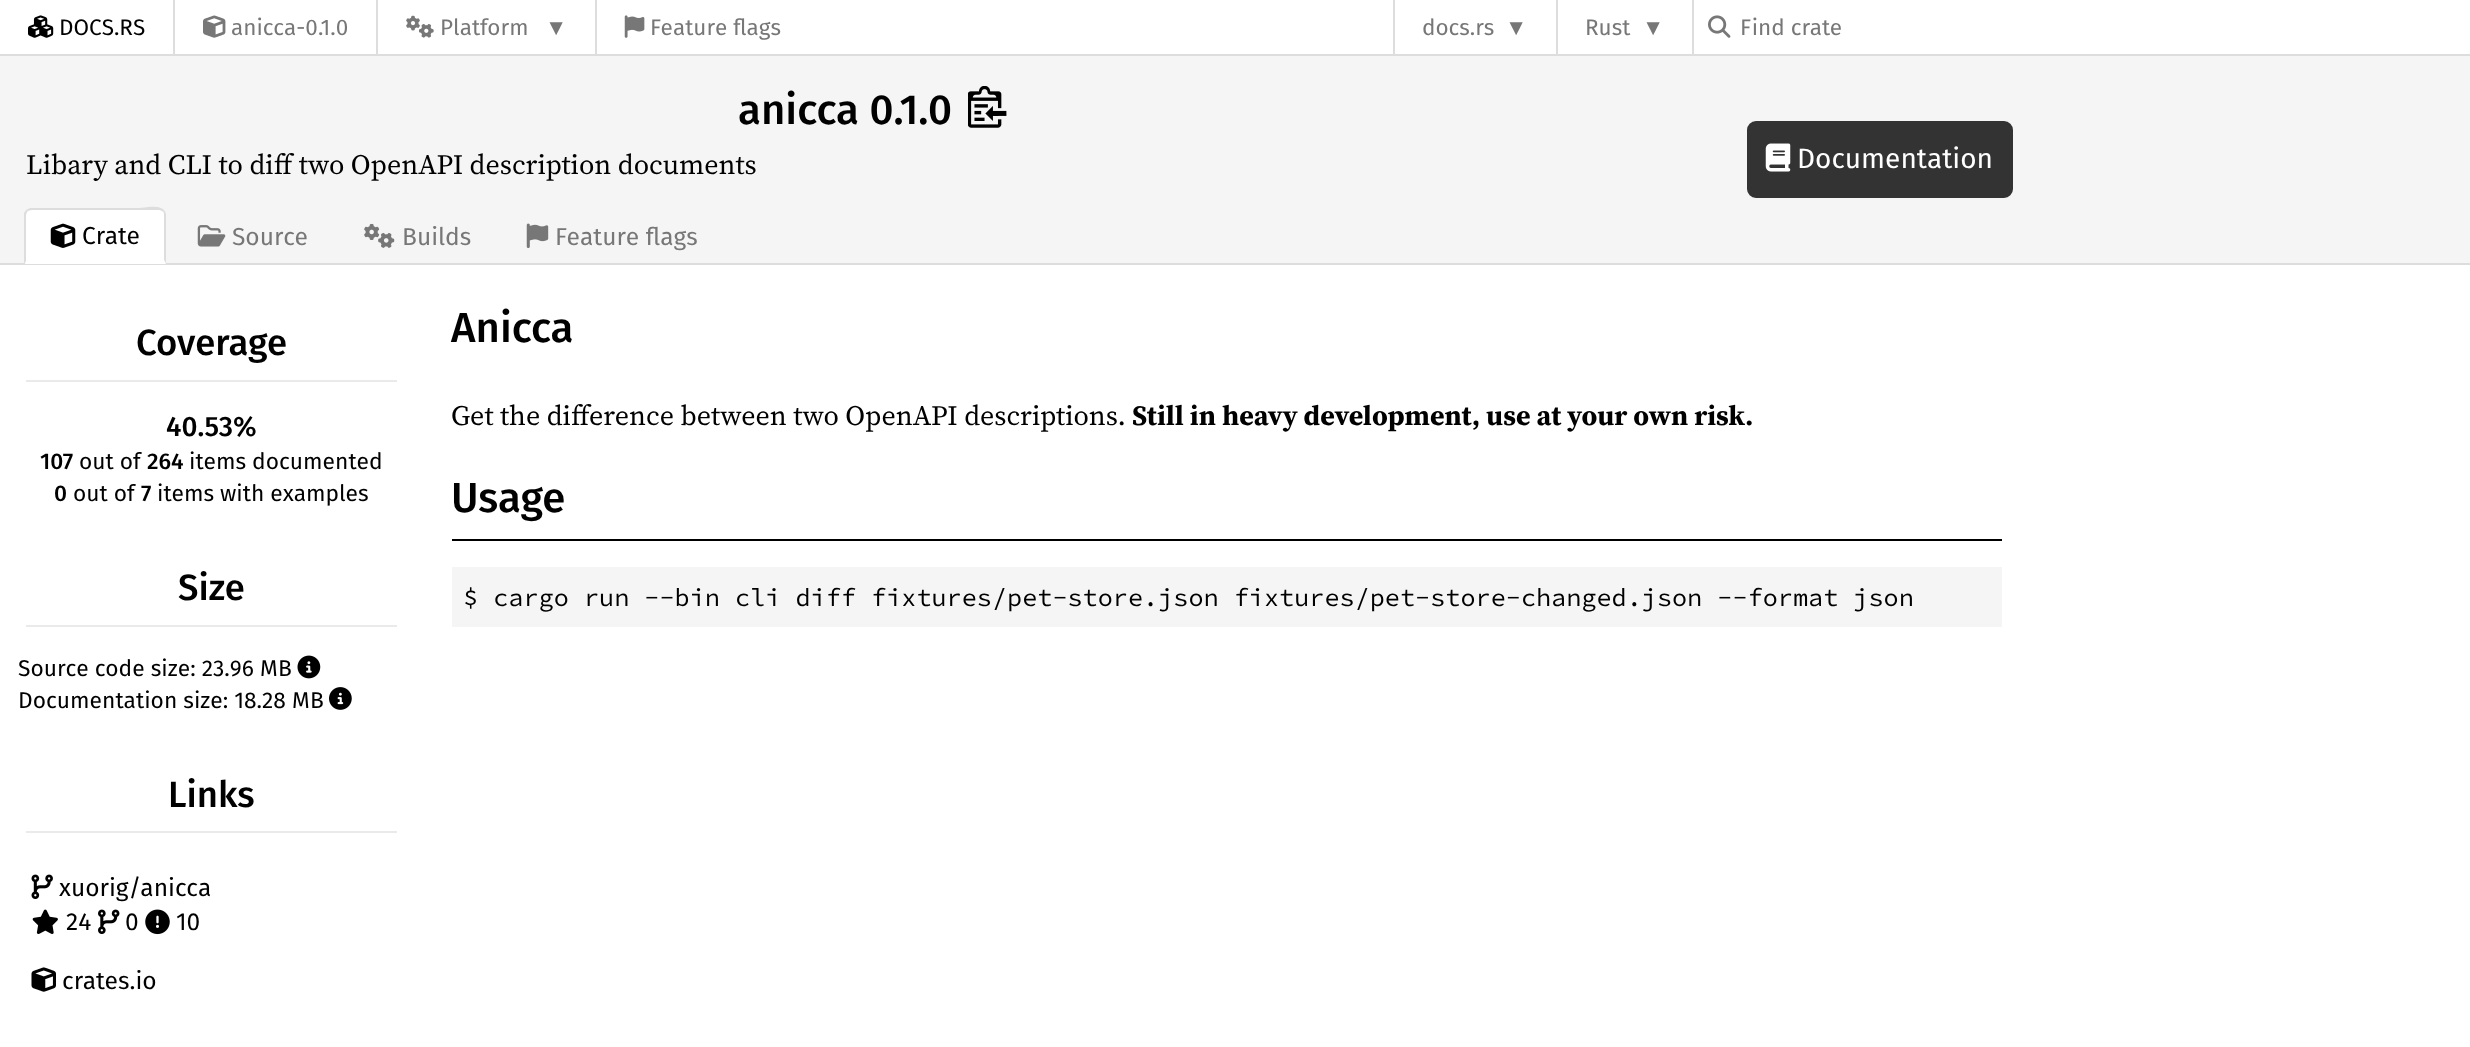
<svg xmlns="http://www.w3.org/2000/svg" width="2470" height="1047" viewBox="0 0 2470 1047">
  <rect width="100%" height="100%" fill="rgb(255,255,255)"/>
  <rect x="0" y="54" width="2470" height="2" fill="rgb(221,221,221)"/>
  <image x="28" y="15" width="26" height="23" href="pic1.png"/>
  <text x="59" y="35" font-family="Fira Sans" font-size="22.5" fill="rgb(0,0,0)">DOCS.RS</text>
  <rect x="173" y="0" width="2" height="54" fill="rgb(221,221,221)"/>
  <image x="203" y="15" width="23" height="23" href="pic2.png"/>
  <text x="231" y="35" font-family="Fira Sans" font-size="22.5" fill="rgb(119,119,119)">anicca-0.1.0</text>
  <rect x="376" y="0" width="2" height="54" fill="rgb(221,221,221)"/>
  <image x="406" y="15" width="28" height="23" href="pic3.png"/>
  <text x="440" y="35" font-family="Fira Sans" font-size="22.5" fill="rgb(119,119,119)">Platform</text>
  <text x="545" y="35" font-family="Liberation Sans" font-size="22.5" fill="rgb(119,119,119)">▼</text>
  <rect x="595" y="0" width="2" height="54" fill="rgb(221,221,221)"/>
  <image x="624" y="15" width="21" height="23" href="pic4.png"/>
  <text x="650" y="35" font-family="Fira Sans" font-size="22.5" fill="rgb(119,119,119)">Feature flags</text>
  <rect x="1393" y="0" width="2" height="54" fill="rgb(221,221,221)"/>
  <text x="1422" y="35" font-family="Fira Sans" font-size="22.5" fill="rgb(119,119,119)">docs.rs</text>
  <text x="1505" y="35" font-family="Liberation Sans" font-size="22.5" fill="rgb(119,119,119)">▼</text>
  <rect x="1556" y="0" width="2" height="54" fill="rgb(221,221,221)"/>
  <text x="1585" y="35" font-family="Fira Sans" font-size="22.5" fill="rgb(119,119,119)">Rust</text>
  <text x="1642" y="35" font-family="Liberation Sans" font-size="22.5" fill="rgb(119,119,119)">▼</text>
  <rect x="1692" y="0" width="2" height="54" fill="rgb(221,221,221)"/>
  <image x="1708" y="15" width="23" height="23" href="pic5.png"/>
  <text x="1740" y="35" font-family="Fira Sans" font-size="22.5" fill="rgb(119,119,119)">Find crate</text>
  <rect x="0" y="56" width="2470" height="207" fill="rgb(245,245,245)"/>
  <rect x="0" y="263" width="2470" height="2" fill="rgb(221,221,221)"/>
  <text x="738" y="124" font-family="Fira Sans" font-size="42" font-weight="500" fill="rgb(0,0,0)">anicca 0.1.0</text>
  <image x="968" y="86" width="39" height="42" href="pic6.png"/>
  <text x="26" y="174" font-family="'Source Serif 4'" font-size="28" fill="rgb(0,0,0)">Libary and CLI to diff two OpenAPI description documents</text>
  <path d="M31 210H160C163 210 165 212 165 215V261H26V215C26 212 28 210 31 210Z" fill="rgb(255,255,255)"/>
  <path d="M32 210C30 210 29 211 28 211L26 210L30 208H139C142 208 159 204 164 210L163 212C162 211 161 210 159 210Z" fill="rgb(221,221,221)"/>
  <path d="M164 210C165 211 166 213 166 215V264L164 260V215C164 214 164 212 163 212Z" fill="rgb(221,221,221)"/>
  <path d="M166 264H25L26 261H164V260Z" fill="rgb(255,255,255)"/>
  <path d="M24 213L26 210L28 211C27 212 26 214 26 215V261L24 264Z" fill="rgb(221,221,221)"/>
  <image x="50" y="223" width="26" height="25" href="pic7.png"/>
  <text x="82" y="244" font-family="Fira Sans" font-size="24.5" fill="rgb(0,0,0)">Crate</text>
  <image x="197" y="225" width="29" height="22" href="pic8.png"/>
  <text x="232" y="245" font-family="Fira Sans" font-size="24.5" fill="rgb(119,119,119)">Source</text>
  <image x="364" y="223" width="31" height="25" href="pic9.png"/>
  <text x="402" y="245" font-family="Fira Sans" font-size="24.5" fill="rgb(119,119,119)">Builds</text>
  <image x="526" y="223" width="23" height="25" href="pic10.png"/>
  <text x="555" y="245" font-family="Fira Sans" font-size="24.5" fill="rgb(119,119,119)">Feature flags</text>
  <rect x="1748" y="122" width="264" height="75" rx="8" fill="rgb(51,51,51)" stroke="rgb(51,51,51)" stroke-width="2"/>
  <image x="1765" y="143" width="26" height="29" href="pic11.png"/>
  <text x="1797" y="168" font-family="Fira Sans" font-size="28" fill="rgb(255,255,255)">Documentation</text>
  <rect x="26" y="380" width="371" height="2" fill="rgb(234,234,234)"/>
  <text x="136" y="355" font-family="Fira Sans" font-size="36.5" font-weight="500" fill="rgb(0,0,0)">Coverage</text>
  <text x="166" y="436" font-family="Fira Sans" font-size="28" font-weight="500" fill="rgb(0,0,0)">40.53%</text>
  <text x="40" y="469" font-family="Fira Sans" font-size="22.75" font-weight="500" fill="rgb(0,0,0)">107</text>
  <text x="79" y="469" font-family="Fira Sans" font-size="22.75" fill="rgb(0,0,0)">out of</text>
  <text x="147" y="469" font-family="Fira Sans" font-size="22.75" font-weight="500" fill="rgb(0,0,0)">264</text>
  <text x="189" y="469" font-family="Fira Sans" font-size="22.75" fill="rgb(0,0,0)">items documented</text>
  <text x="54" y="501" font-family="Fira Sans" font-size="22.75" font-weight="500" fill="rgb(0,0,0)">0</text>
  <text x="73" y="501" font-family="Fira Sans" font-size="22.75" fill="rgb(0,0,0)">out of</text>
  <text x="141" y="501" font-family="Fira Sans" font-size="22.75" font-weight="500" fill="rgb(0,0,0)">7</text>
  <text x="157" y="501" font-family="Fira Sans" font-size="22.75" fill="rgb(0,0,0)">items with examples</text>
  <rect x="26" y="625" width="371" height="2" fill="rgb(234,234,234)"/>
  <text x="178" y="600" font-family="Fira Sans" font-size="36.5" font-weight="500" fill="rgb(0,0,0)">Size</text>
  <text x="18" y="676" font-family="Fira Sans" font-size="22.75" fill="rgb(0,0,0)">Source code size: 23.96 MB</text>
  <image x="297" y="655" width="24" height="24" href="pic12.png"/>
  <text x="18" y="708" font-family="Fira Sans" font-size="22.75" fill="rgb(0,0,0)">Documentation size: 18.28 MB</text>
  <image x="329" y="687" width="23" height="23" href="pic13.png"/>
  <rect x="26" y="831" width="371" height="2" fill="rgb(234,234,234)"/>
  <text x="168" y="807" font-family="Fira Sans" font-size="36.5" font-weight="500" fill="rgb(0,0,0)">Links</text>
  <image x="31" y="874" width="22" height="25" href="pic14.png"/>
  <text x="59" y="896" font-family="Fira Sans" font-size="24.5" fill="rgb(0,0,0)">xuorig/anicca</text>
  <image x="32" y="909" width="26" height="25" href="pic15.png"/>
  <text x="66" y="930" font-family="Fira Sans" font-size="24.5" fill="rgb(0,0,0)">24</text>
  <image x="98" y="909" width="22" height="25" href="pic16.png"/>
  <text x="125" y="930" font-family="Fira Sans" font-size="24.5" fill="rgb(0,0,0)">0</text>
  <image x="145" y="909" width="25" height="26" href="pic17.png"/>
  <text x="176" y="930" font-family="Fira Sans" font-size="24.5" fill="rgb(0,0,0)">10</text>
  <image x="31" y="967" width="25" height="25" href="pic18.png"/>
  <text x="62" y="989" font-family="Fira Sans" font-size="24.5" fill="rgb(0,0,0)">crates.io</text>
  <text x="451" y="342" font-family="Fira Sans" font-size="42" font-weight="500" fill="rgb(0,0,0)">Anicca</text>
  <text x="451" y="425" font-family="'Source Serif 4'" font-size="28" fill="rgb(0,0,0)">Get the difference between two OpenAPI descriptions.</text>
  <text x="1132" y="425" font-family="'Source Serif 4'" font-size="28" font-weight="bold" fill="rgb(0,0,0)">Still in heavy development, use at your own risk.</text>
  <rect x="452" y="539" width="1550" height="2" fill="rgb(0,0,0)"/>
  <text x="451" y="512" font-family="Fira Sans" font-size="42" font-weight="500" fill="rgb(0,0,0)">Usage</text>
  <rect x="452" y="567" width="1550" height="60" fill="rgb(245,245,245)"/>
  <text x="463" y="606" font-family="Source Code Pro" font-size="25.2" fill="rgb(0,0,0)">$ cargo run --bin cli diff fixtures/pet-store.json fixtures/pet-store-changed.json --format json</text>
</svg>
